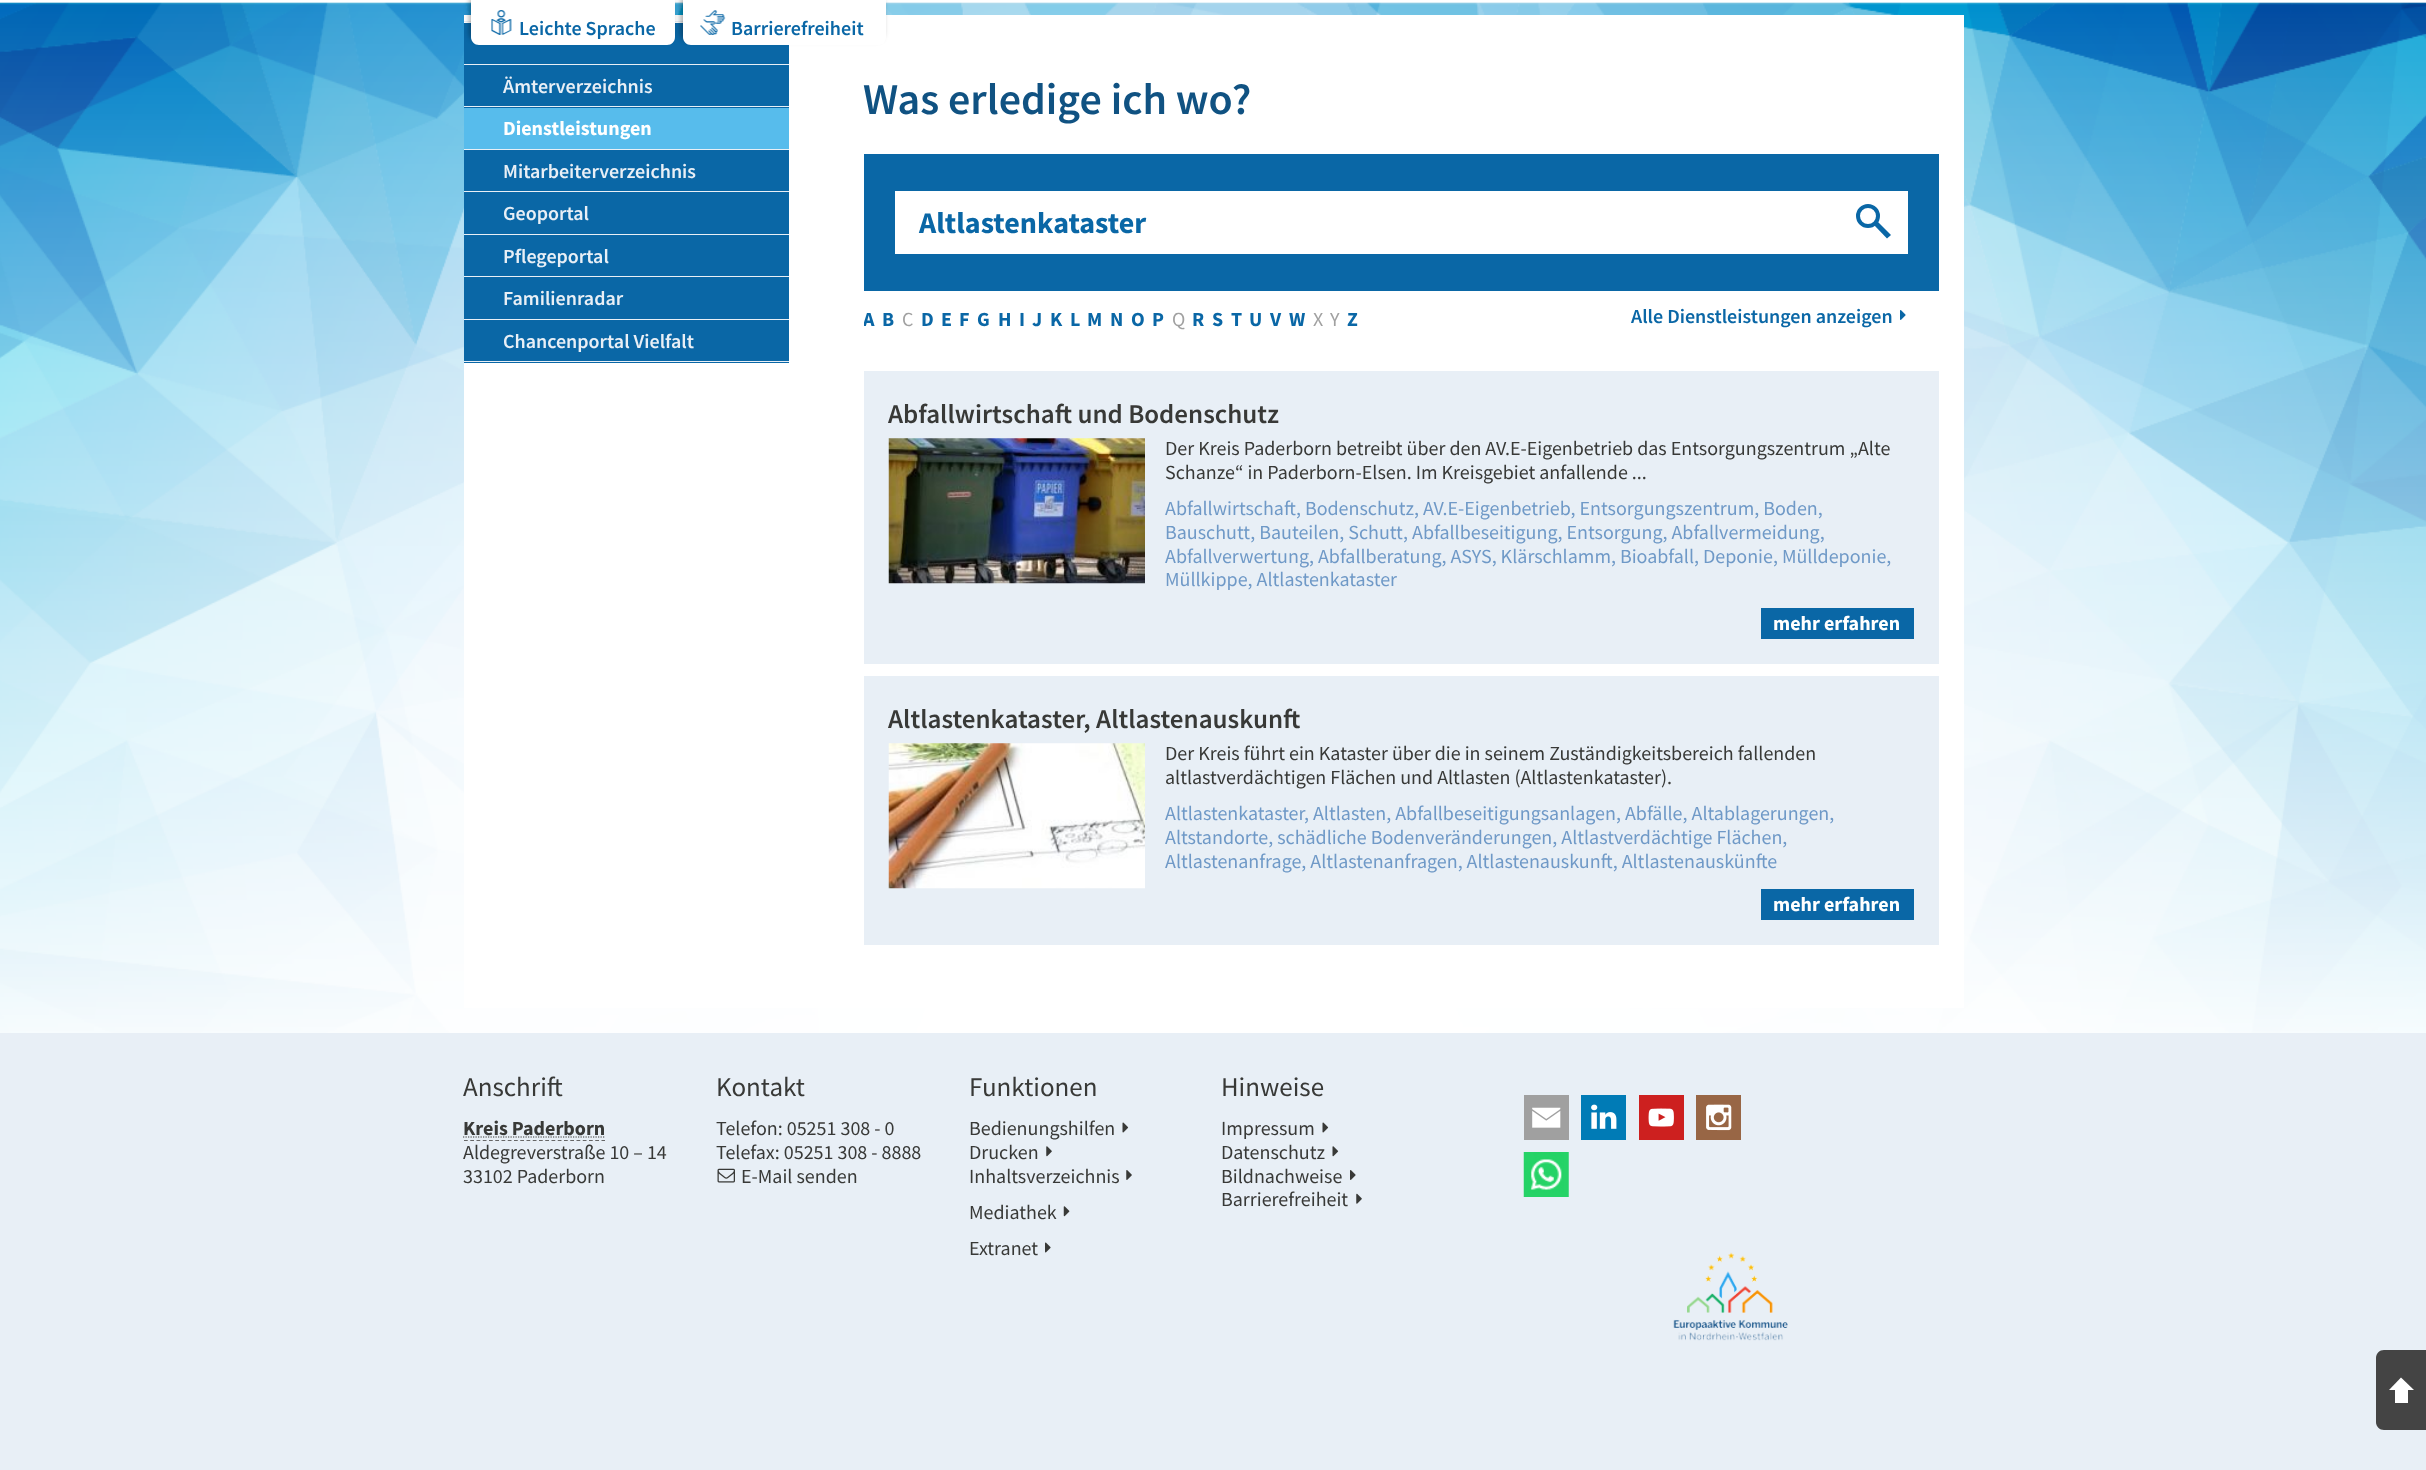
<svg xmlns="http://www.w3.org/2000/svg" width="2426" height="1470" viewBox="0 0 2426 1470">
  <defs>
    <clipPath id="clip1"><rect x="864" y="304" width="511" height="30"/></clipPath>
  </defs>
  <rect width="100%" height="100%" fill="rgb(255,255,255)"/>
  <image x="0" y="2" width="2426" height="1031" href="pic1.png"/>
  <rect x="464" y="15" width="1500" height="993" fill="rgb(255,255,255)"/>
  <rect x="464" y="21" width="219" height="1" fill="rgb(232,239,246)"/>
  <rect x="464" y="23" width="325" height="41" fill="rgb(10,103,166)"/>
  <rect x="469" y="-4" width="204" height="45" rx="8" fill="rgba(0,0,0,0.3)" filter="blur(2.5px)"/>
  <path d="M471 0H675V37C675 41.5 671.5 45 667 45H479C474.5 45 471 41.5 471 37Z" fill="rgb(255,255,255)"/>
  <image x="491" y="10" width="21" height="25" href="pic2.png"/>
  <text x="519" y="35" font-family="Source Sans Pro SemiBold" font-size="20" font-weight="600" fill="rgb(10,103,166)">Leichte Sprache</text>
  <rect x="680" y="-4" width="204" height="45" rx="8" fill="rgba(0,0,0,0.3)" filter="blur(2.5px)"/>
  <path d="M683 0H886V37C886 41.5 882.5 45 878 45H691C686.5 45 683 41.5 683 37Z" fill="rgb(255,255,255)"/>
  <image x="700" y="10" width="26" height="25" href="pic3.png"/>
  <text x="731" y="35" font-family="Source Sans Pro SemiBold" font-size="20" font-weight="600" fill="rgb(10,103,166)">Barrierefreiheit</text>
  <rect x="464" y="64" width="325" height="1" fill="rgb(232,239,246)"/>
  <rect x="464" y="65" width="325" height="43" fill="rgb(10,103,166)"/>
  <rect x="464" y="106" width="325" height="1" fill="rgb(232,239,246)"/>
  <text x="503" y="93" font-family="Source Sans Pro SemiBold" font-size="20" font-weight="600" fill="rgb(232,239,246)">Ämterverzeichnis</text>
  <rect x="464" y="108" width="325" height="41" fill="rgb(87,188,236)"/>
  <rect x="464" y="149" width="325" height="1" fill="rgb(232,239,246)"/>
  <text x="503" y="135" font-family="Source Sans Pro" font-size="20" font-weight="bold" fill="rgb(255,255,255)">Dienstleistungen</text>
  <rect x="464" y="150" width="325" height="84" fill="rgb(10,103,166)"/>
  <rect x="464" y="191" width="325" height="1" fill="rgb(232,239,246)"/>
  <text x="503" y="178" font-family="Source Sans Pro SemiBold" font-size="20" font-weight="600" fill="rgb(232,239,246)">Mitarbeiterverzeichnis</text>
  <rect x="464" y="234" width="325" height="1" fill="rgb(232,239,246)"/>
  <text x="503" y="220" font-family="Source Sans Pro SemiBold" font-size="20" font-weight="600" fill="rgb(232,239,246)">Geoportal</text>
  <rect x="464" y="235" width="325" height="84" fill="rgb(10,103,166)"/>
  <rect x="464" y="276" width="325" height="1" fill="rgb(232,239,246)"/>
  <text x="503" y="263" font-family="Source Sans Pro SemiBold" font-size="20" font-weight="600" fill="rgb(232,239,246)">Pflegeportal</text>
  <rect x="464" y="319" width="325" height="1" fill="rgb(232,239,246)"/>
  <text x="503" y="305" font-family="Source Sans Pro SemiBold" font-size="20" font-weight="600" fill="rgb(232,239,246)">Familienradar</text>
  <rect x="464" y="320" width="325" height="43" fill="rgb(10,103,166)"/>
  <rect x="464" y="361" width="325" height="1" fill="rgb(232,239,246)"/>
  <text x="503" y="348" font-family="Source Sans Pro SemiBold" font-size="20" font-weight="600" fill="rgb(232,239,246)">Chancenportal Vielfalt</text>
  <text x="863" y="114" font-family="Source Sans Pro SemiBold" font-size="44" font-weight="600" fill="rgb(16,82,130)">Was erledige ich wo?</text>
  <rect x="864" y="154" width="1075" height="137" fill="rgb(10,103,166)"/>
  <rect x="895" y="191" width="1013" height="63" fill="rgb(255,255,255)"/>
  <text x="919" y="233" font-family="Source Sans Pro" font-size="30" font-weight="bold" fill="rgb(10,103,166)">Altlastenkataster</text>
  <circle cx="1868" cy="216" r="10" fill="none" stroke="rgb(10,103,166)" stroke-width="4"/>
  <path d="M1878 222L1891 235L1887 238.5L1874 225Z" fill="rgb(10,103,166)"/>
  <g clip-path="url(#clip1)">
    <text x="863" y="326" font-family="Source Sans Pro" font-size="20" font-weight="bold" fill="rgb(10,103,166)">A</text>
  </g>
  <text x="882" y="326" font-family="Source Sans Pro" font-size="20" font-weight="bold" fill="rgb(10,103,166)">B</text>
  <text x="902" y="326" font-family="Source Sans Pro" font-size="20" fill="rgb(161,161,161)">C</text>
  <g font-family="Source Sans Pro" font-size="20" font-weight="bold" fill="rgb(10,103,166)">
    <text x="921" y="326">D</text>
    <text x="941" y="326">E</text>
    <text x="959" y="326">F</text>
    <text x="977" y="326">G</text>
    <text x="998" y="326">H</text>
    <text x="1019" y="326">I</text>
    <text x="1032" y="326">J</text>
    <text x="1050" y="326">K</text>
    <text x="1070" y="326">L</text>
    <text x="1087" y="326">M</text>
    <text x="1110" y="326">N</text>
    <text x="1131" y="326">O</text>
    <text x="1152" y="326">P</text>
  </g>
  <text x="1172" y="326" font-family="Source Sans Pro" font-size="20" fill="rgb(161,161,161)">Q</text>
  <g font-family="Source Sans Pro" font-size="20" font-weight="bold" fill="rgb(10,103,166)">
    <text x="1192" y="326">R</text>
    <text x="1212" y="326">S</text>
    <text x="1231" y="326">T</text>
    <text x="1249" y="326">U</text>
    <text x="1270" y="326">V</text>
    <text x="1289" y="326">W</text>
  </g>
  <g font-family="Source Sans Pro" font-size="20" fill="rgb(161,161,161)">
    <text x="1313" y="326">X</text>
    <text x="1330" y="326">Y</text>
  </g>
  <text x="1347" y="326" font-family="Source Sans Pro" font-size="20" font-weight="bold" fill="rgb(10,103,166)">Z</text>
  <text x="1631" y="323" font-family="Source Sans Pro SemiBold" font-size="20" font-weight="600" fill="rgb(10,103,166)">Alle Dienstleistungen anzeigen</text>
  <image x="1900" y="310" width="6" height="10" href="pic4.png"/>
  <rect x="864" y="371" width="1075" height="293" fill="rgb(232,239,246)"/>
  <text x="888" y="423" font-family="Source Sans Pro SemiBold" font-size="27" font-weight="600" fill="rgb(56,57,55)">Abfallwirtschaft und Bodenschutz</text>
  <image x="888" y="438" width="257" height="146" href="pic5.png"/>
  <g font-family="Source Sans Pro" font-size="20" fill="rgb(56,57,55)">
    <text>
      <tspan x="1165" y="455">Der Kreis Paderborn betreibt über den AV.E-Eigenbetrieb das Entsorgungszentrum „Alte</tspan>
      <tspan x="1165" y="479">Schanze“ in Paderborn-Elsen. Im Kreisgebiet anfallende ...</tspan>
    </text>
  </g>
  <g font-family="Source Sans Pro" font-size="20" fill="rgb(111,153,199)">
    <text>
      <tspan x="1165" y="515">Abfallwirtschaft, Bodenschutz, AV.E-Eigenbetrieb, Entsorgungszentrum, Boden,</tspan>
      <tspan x="1165" y="539">Bauschutt, Bauteilen, Schutt, Abfallbeseitigung, Entsorgung, Abfallvermeidung,</tspan>
      <tspan x="1165" y="563">Abfallverwertung, Abfallberatung, ASYS, Klärschlamm, Bioabfall, Deponie, Mülldeponie,</tspan>
      <tspan x="1165" y="586">Müllkippe, Altlastenkataster</tspan>
    </text>
  </g>
  <rect x="1761" y="608" width="153" height="31" fill="rgb(10,103,166)"/>
  <text x="1773" y="630" font-family="Source Sans Pro" font-size="20" font-weight="bold" fill="rgb(255,255,255)">mehr erfahren</text>
  <rect x="864" y="676" width="1075" height="269" fill="rgb(232,239,246)"/>
  <text x="888" y="728" font-family="Source Sans Pro SemiBold" font-size="27" font-weight="600" fill="rgb(56,57,55)">Altlastenkataster, Altlastenauskunft</text>
  <image x="888" y="743" width="257" height="146" href="pic6.png"/>
  <g font-family="Source Sans Pro" font-size="20" fill="rgb(56,57,55)">
    <text>
      <tspan x="1165" y="760">Der Kreis führt ein Kataster über die in seinem Zuständigkeitsbereich fallenden</tspan>
      <tspan x="1165" y="784">altlastverdächtigen Flächen und Altlasten (Altlastenkataster).</tspan>
    </text>
  </g>
  <g font-family="Source Sans Pro" font-size="20" fill="rgb(111,153,199)">
    <text x="1165" y="820">Altlastenkataster</text>
    <text x="1304" y="820">, Altlasten, Abfallbeseitigungsanlagen, Abfälle, Altablagerungen,</text>
    <text>
      <tspan x="1165" y="844">Altstandorte, schädliche Bodenveränderungen, Altlastverdächtige Flächen,</tspan>
      <tspan x="1165" y="868">Altlastenanfrage, Altlastenanfragen, Altlastenauskunft, Altlastenauskünfte</tspan>
    </text>
  </g>
  <rect x="1761" y="889" width="153" height="31" fill="rgb(10,103,166)"/>
  <text x="1773" y="911" font-family="Source Sans Pro" font-size="20" font-weight="bold" fill="rgb(255,255,255)">mehr erfahren</text>
  <rect x="0" y="1033" width="2426" height="437" fill="rgb(232,239,246)"/>
  <text x="463" y="1096" font-family="Source Sans Pro" font-size="27" fill="rgb(56,57,55)">Anschrift</text>
  <text x="463" y="1135" font-family="Source Sans Pro" font-size="20" font-weight="bold" fill="rgb(56,57,55)">Kreis Paderborn</text>
  <path d="M464 1140.5H605" fill="none" stroke="rgb(102,102,102)" stroke-width="1.2" stroke-dasharray="3.75 2.5"/>
  <path d="M463 1137H605.5" fill="none" stroke="rgb(56,57,55)" stroke-width="1.2" stroke-dasharray="1.25 1.25"/>
  <g font-family="Source Sans Pro" font-size="20" fill="rgb(56,57,55)">
    <text>
      <tspan x="463" y="1159">Aldegreverstraße 10 – 14</tspan>
      <tspan x="463" y="1183">33102 Paderborn</tspan>
    </text>
  </g>
  <text x="716" y="1096" font-family="Source Sans Pro" font-size="27" fill="rgb(56,57,55)">Kontakt</text>
  <g font-family="Source Sans Pro" font-size="20" fill="rgb(56,57,55)">
    <text>
      <tspan x="716" y="1135">Telefon: 05251 308 - 0</tspan>
      <tspan x="716" y="1159">Telefax: 05251 308 - 8888</tspan>
    </text>
  </g>
  <image x="717" y="1168" width="18" height="15" href="pic7.png"/>
  <text x="741" y="1183" font-family="Source Sans Pro" font-size="20" fill="rgb(56,57,55)">E-Mail senden</text>
  <text x="969" y="1096" font-family="Source Sans Pro" font-size="27" fill="rgb(56,57,55)">Funktionen</text>
  <text x="969" y="1135" font-family="Source Sans Pro" font-size="20" fill="rgb(56,57,55)">Bedienungshilfen</text>
  <image x="1122" y="1122" width="7" height="11" href="pic8.png"/>
  <text x="969" y="1159" font-family="Source Sans Pro" font-size="20" fill="rgb(56,57,55)">Drucken</text>
  <image x="1046" y="1146" width="6" height="11" href="pic9.png"/>
  <text x="969" y="1183" font-family="Source Sans Pro" font-size="20" fill="rgb(56,57,55)">Inhaltsverzeichnis</text>
  <image x="1126" y="1170" width="6" height="10" href="pic10.png"/>
  <text x="969" y="1219" font-family="Source Sans Pro" font-size="20" fill="rgb(56,57,55)">Mediathek</text>
  <image x="1063" y="1206" width="7" height="11" href="pic11.png"/>
  <text x="969" y="1255" font-family="Source Sans Pro" font-size="20" fill="rgb(56,57,55)">Extranet</text>
  <image x="1045" y="1242" width="6" height="11" href="pic12.png"/>
  <text x="1221" y="1096" font-family="Source Sans Pro" font-size="27" fill="rgb(56,57,55)">Hinweise</text>
  <text x="1221" y="1135" font-family="Source Sans Pro" font-size="20" fill="rgb(56,57,55)">Impressum</text>
  <image x="1322" y="1122" width="7" height="11" href="pic8.png"/>
  <text x="1221" y="1159" font-family="Source Sans Pro" font-size="20" fill="rgb(56,57,55)">Datenschutz</text>
  <image x="1332" y="1146" width="7" height="11" href="pic13.png"/>
  <text x="1221" y="1183" font-family="Source Sans Pro" font-size="20" fill="rgb(56,57,55)">Bildnachweise</text>
  <image x="1350" y="1170" width="6" height="10" href="pic14.png"/>
  <text x="1221" y="1206" font-family="Source Sans Pro" font-size="20" fill="rgb(56,57,55)">Barrierefreiheit</text>
  <image x="1356" y="1193" width="6" height="11" href="pic15.png"/>
  <rect x="1524" y="1095" width="45" height="45" fill="rgb(160,160,160)"/>
  <image x="1532" y="1107" width="29" height="21" href="pic16.png"/>
  <rect x="1581" y="1095" width="45" height="45" fill="rgb(0,123,182)"/>
  <image x="1591" y="1104" width="26" height="25" href="pic17.png"/>
  <rect x="1639" y="1095" width="45" height="45" fill="rgb(205,32,31)"/>
  <image x="1648" y="1108" width="26" height="19" href="pic18.png"/>
  <rect x="1696" y="1095" width="45" height="45" fill="rgb(152,102,69)"/>
  <image x="1706" y="1104" width="26" height="27" href="pic19.png"/>
  <image x="1523" y="1152" width="46" height="45" href="pic20.png"/>
  <image x="1673" y="1252" width="115" height="89" href="pic21.png"/>
  <path d="M2384 1350H2426V1430H2384C2379.5 1430 2376 1426.5 2376 1422V1358C2376 1353.5 2379.5 1350 2384 1350Z" fill="rgb(68,68,68)"/>
  <path d="M2414 1390H2389L2401 1377.5Z" fill="rgb(255,255,255)"/>
  <rect x="2395" y="1390" width="13" height="13" fill="rgb(255,255,255)"/>
</svg>
